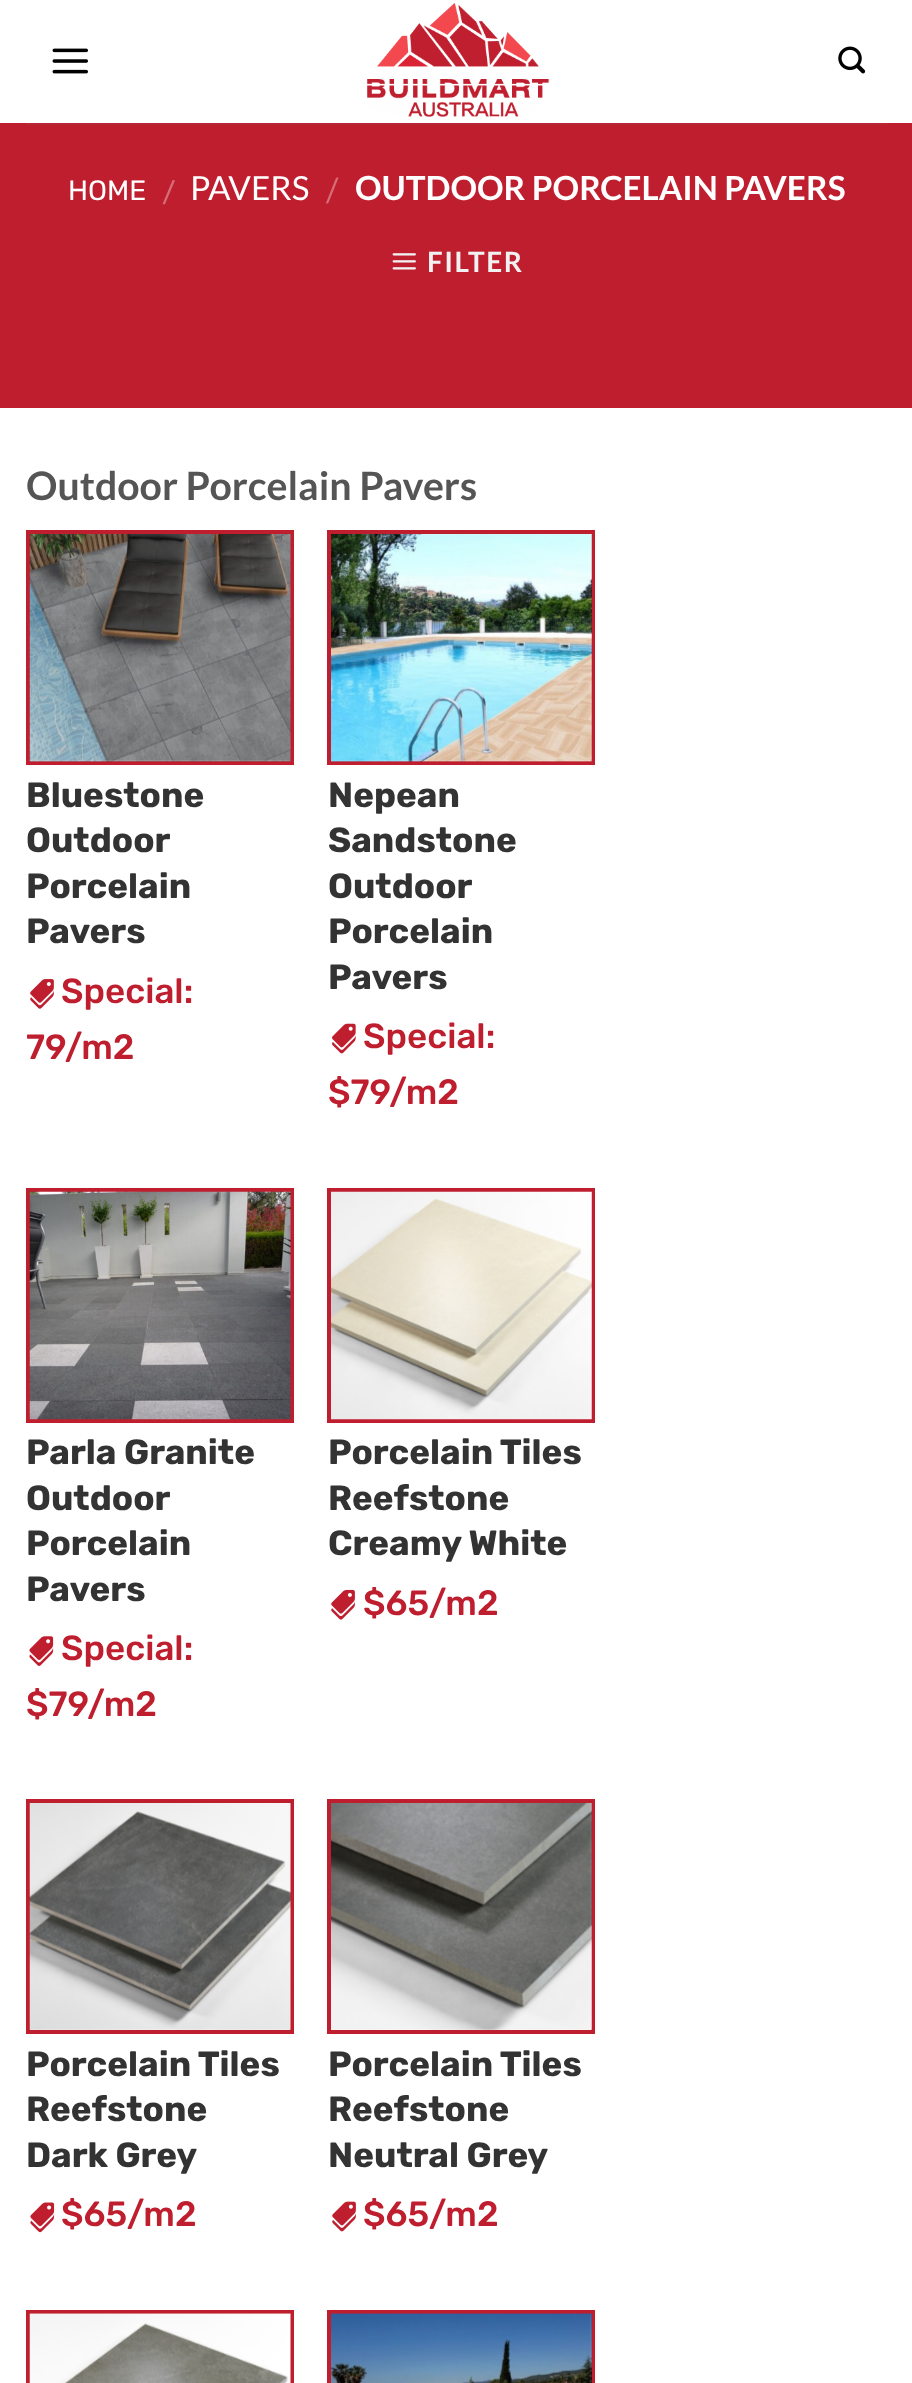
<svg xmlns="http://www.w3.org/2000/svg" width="912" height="2383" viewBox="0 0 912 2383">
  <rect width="100%" height="100%" fill="rgb(255,255,255)"/>
  <image x="52" y="48" width="36" height="26" href="pic1.png"/>
  <image x="367" y="2" width="183" height="115" href="pic2.png"/>
  <image x="838" y="46" width="28" height="28" href="pic3.png"/>
  <rect x="0" y="123" width="912" height="285" fill="rgb(191,30,46)"/>
  <rect x="26" y="123" width="861" height="2" fill="rgb(184,39,53)"/>
  <text x="68" y="200" font-family="Rubik" font-size="28" fill="rgb(255,255,255)">HOME</text>
  <text x="162" y="202" font-family="Rubik" font-size="28" fill="rgb(213,109,119)">/</text>
  <text x="190" y="200" font-family="Lato" font-size="33.25" fill="rgb(255,255,255)">PAVERS</text>
  <text x="326" y="202" font-family="Lato" font-size="33.25" fill="rgb(213,109,119)">/</text>
  <text x="355" y="200" font-family="Lato" font-size="33.25" font-weight="bold" fill="rgb(255,255,255)">OUTDOOR PORCELAIN PAVERS</text>
  <image x="392" y="253" width="24" height="17" href="pic4.png"/>
  <text x="427" y="272" font-family="Lato" font-size="28" font-weight="bold" letter-spacing="1.5" fill="rgb(241,241,241)">FILTER</text>
  <text x="26" y="500" font-family="Lato" font-size="39.25" font-weight="bold" fill="rgb(85,85,85)">Outdoor Porcelain Pavers</text>
  <rect x="28" y="532" width="264" height="231" fill="none" stroke="rgb(191,30,46)" stroke-width="4"/>
  <image x="29" y="534" width="262" height="228" href="pic5.png"/>
  <g font-family="Rubik" font-size="35" font-weight="bold" fill="rgb(51,51,51)">
    <text>
      <tspan x="26" y="807">Bluestone</tspan>
      <tspan x="26" y="852">Outdoor</tspan>
      <tspan x="26" y="898">Porcelain</tspan>
      <tspan x="26" y="943">Pavers</tspan>
    </text>
  </g>
  <image x="30" y="979" width="24" height="30" href="pic6.png"/>
  <g font-family="Rubik" font-size="35" font-weight="500" fill="rgb(191,30,46)">
    <text x="61" y="1003">Special:</text>
    <text x="26" y="1059">79/m2</text>
  </g>
  <rect x="329" y="532" width="264" height="231" fill="none" stroke="rgb(191,30,46)" stroke-width="4"/>
  <image x="331" y="534" width="261" height="228" href="pic7.png"/>
  <g font-family="Rubik" font-size="35" font-weight="bold" fill="rgb(51,51,51)">
    <text>
      <tspan x="328" y="807">Nepean</tspan>
      <tspan x="328" y="852">Sandstone</tspan>
      <tspan x="328" y="898">Outdoor</tspan>
      <tspan x="328" y="943">Porcelain</tspan>
      <tspan x="328" y="989">Pavers</tspan>
    </text>
  </g>
  <image x="332" y="1023" width="24" height="31" href="pic8.png"/>
  <g font-family="Rubik" font-size="35" font-weight="500" fill="rgb(191,30,46)">
    <text x="363" y="1048">Special:</text>
    <text x="328" y="1104">$79/m2</text>
  </g>
  <rect x="28" y="1190" width="264" height="231" fill="none" stroke="rgb(191,30,46)" stroke-width="4"/>
  <image x="29" y="1191" width="262" height="229" href="pic9.png"/>
  <g font-family="Rubik" font-size="35" font-weight="bold" fill="rgb(51,51,51)">
    <text>
      <tspan x="26" y="1464">Parla Granite</tspan>
      <tspan x="26" y="1510">Outdoor</tspan>
      <tspan x="26" y="1555">Porcelain</tspan>
      <tspan x="26" y="1601">Pavers</tspan>
    </text>
  </g>
  <image x="29" y="1636" width="25" height="30" href="pic10.png"/>
  <g font-family="Rubik" font-size="35" font-weight="500" fill="rgb(191,30,46)">
    <text x="61" y="1660">Special:</text>
    <text x="26" y="1716">$79/m2</text>
  </g>
  <rect x="329" y="1190" width="264" height="231" fill="none" stroke="rgb(191,30,46)" stroke-width="4"/>
  <image x="331" y="1191" width="261" height="229" href="pic11.png"/>
  <g font-family="Rubik" font-size="35" font-weight="bold" fill="rgb(51,51,51)">
    <text>
      <tspan x="328" y="1464">Porcelain Tiles</tspan>
      <tspan x="328" y="1510">Reefstone</tspan>
      <tspan x="328" y="1555">Creamy White</tspan>
    </text>
  </g>
  <image x="331" y="1589" width="24" height="31" href="pic12.png"/>
  <text x="363" y="1615" font-family="Rubik" font-size="35" font-weight="500" fill="rgb(191,30,46)">$65/m2</text>
  <rect x="28" y="1801" width="264" height="231" fill="none" stroke="rgb(191,30,46)" stroke-width="4"/>
  <image x="29" y="1803" width="262" height="227" href="pic13.png"/>
  <g font-family="Rubik" font-size="35" font-weight="bold" fill="rgb(51,51,51)">
    <text>
      <tspan x="26" y="2076">Porcelain Tiles</tspan>
      <tspan x="26" y="2121">Reefstone</tspan>
      <tspan x="26" y="2167">Dark Grey</tspan>
    </text>
  </g>
  <image x="30" y="2202" width="25" height="31" href="pic14.png"/>
  <text x="61" y="2226" font-family="Rubik" font-size="35" font-weight="500" fill="rgb(191,30,46)">$65/m2</text>
  <rect x="329" y="1801" width="264" height="231" fill="none" stroke="rgb(191,30,46)" stroke-width="4"/>
  <image x="331" y="1803" width="261" height="227" href="pic15.png"/>
  <g font-family="Rubik" font-size="35" font-weight="bold" fill="rgb(51,51,51)">
    <text>
      <tspan x="328" y="2076">Porcelain Tiles</tspan>
      <tspan x="328" y="2121">Reefstone</tspan>
      <tspan x="328" y="2167">Neutral Grey</tspan>
    </text>
  </g>
  <image x="332" y="2201" width="24" height="31" href="pic16.png"/>
  <text x="363" y="2226" font-family="Rubik" font-size="35" font-weight="500" fill="rgb(191,30,46)">$65/m2</text>
  <rect x="28" y="2312" width="264" height="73" fill="none" stroke="rgb(191,30,46)" stroke-width="4"/>
  <image x="29" y="2313" width="262" height="70" href="pic17.png"/>
  <rect x="329" y="2312" width="264" height="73" fill="none" stroke="rgb(191,30,46)" stroke-width="4"/>
  <image x="331" y="2313" width="261" height="70" href="pic18.png"/>
</svg>
